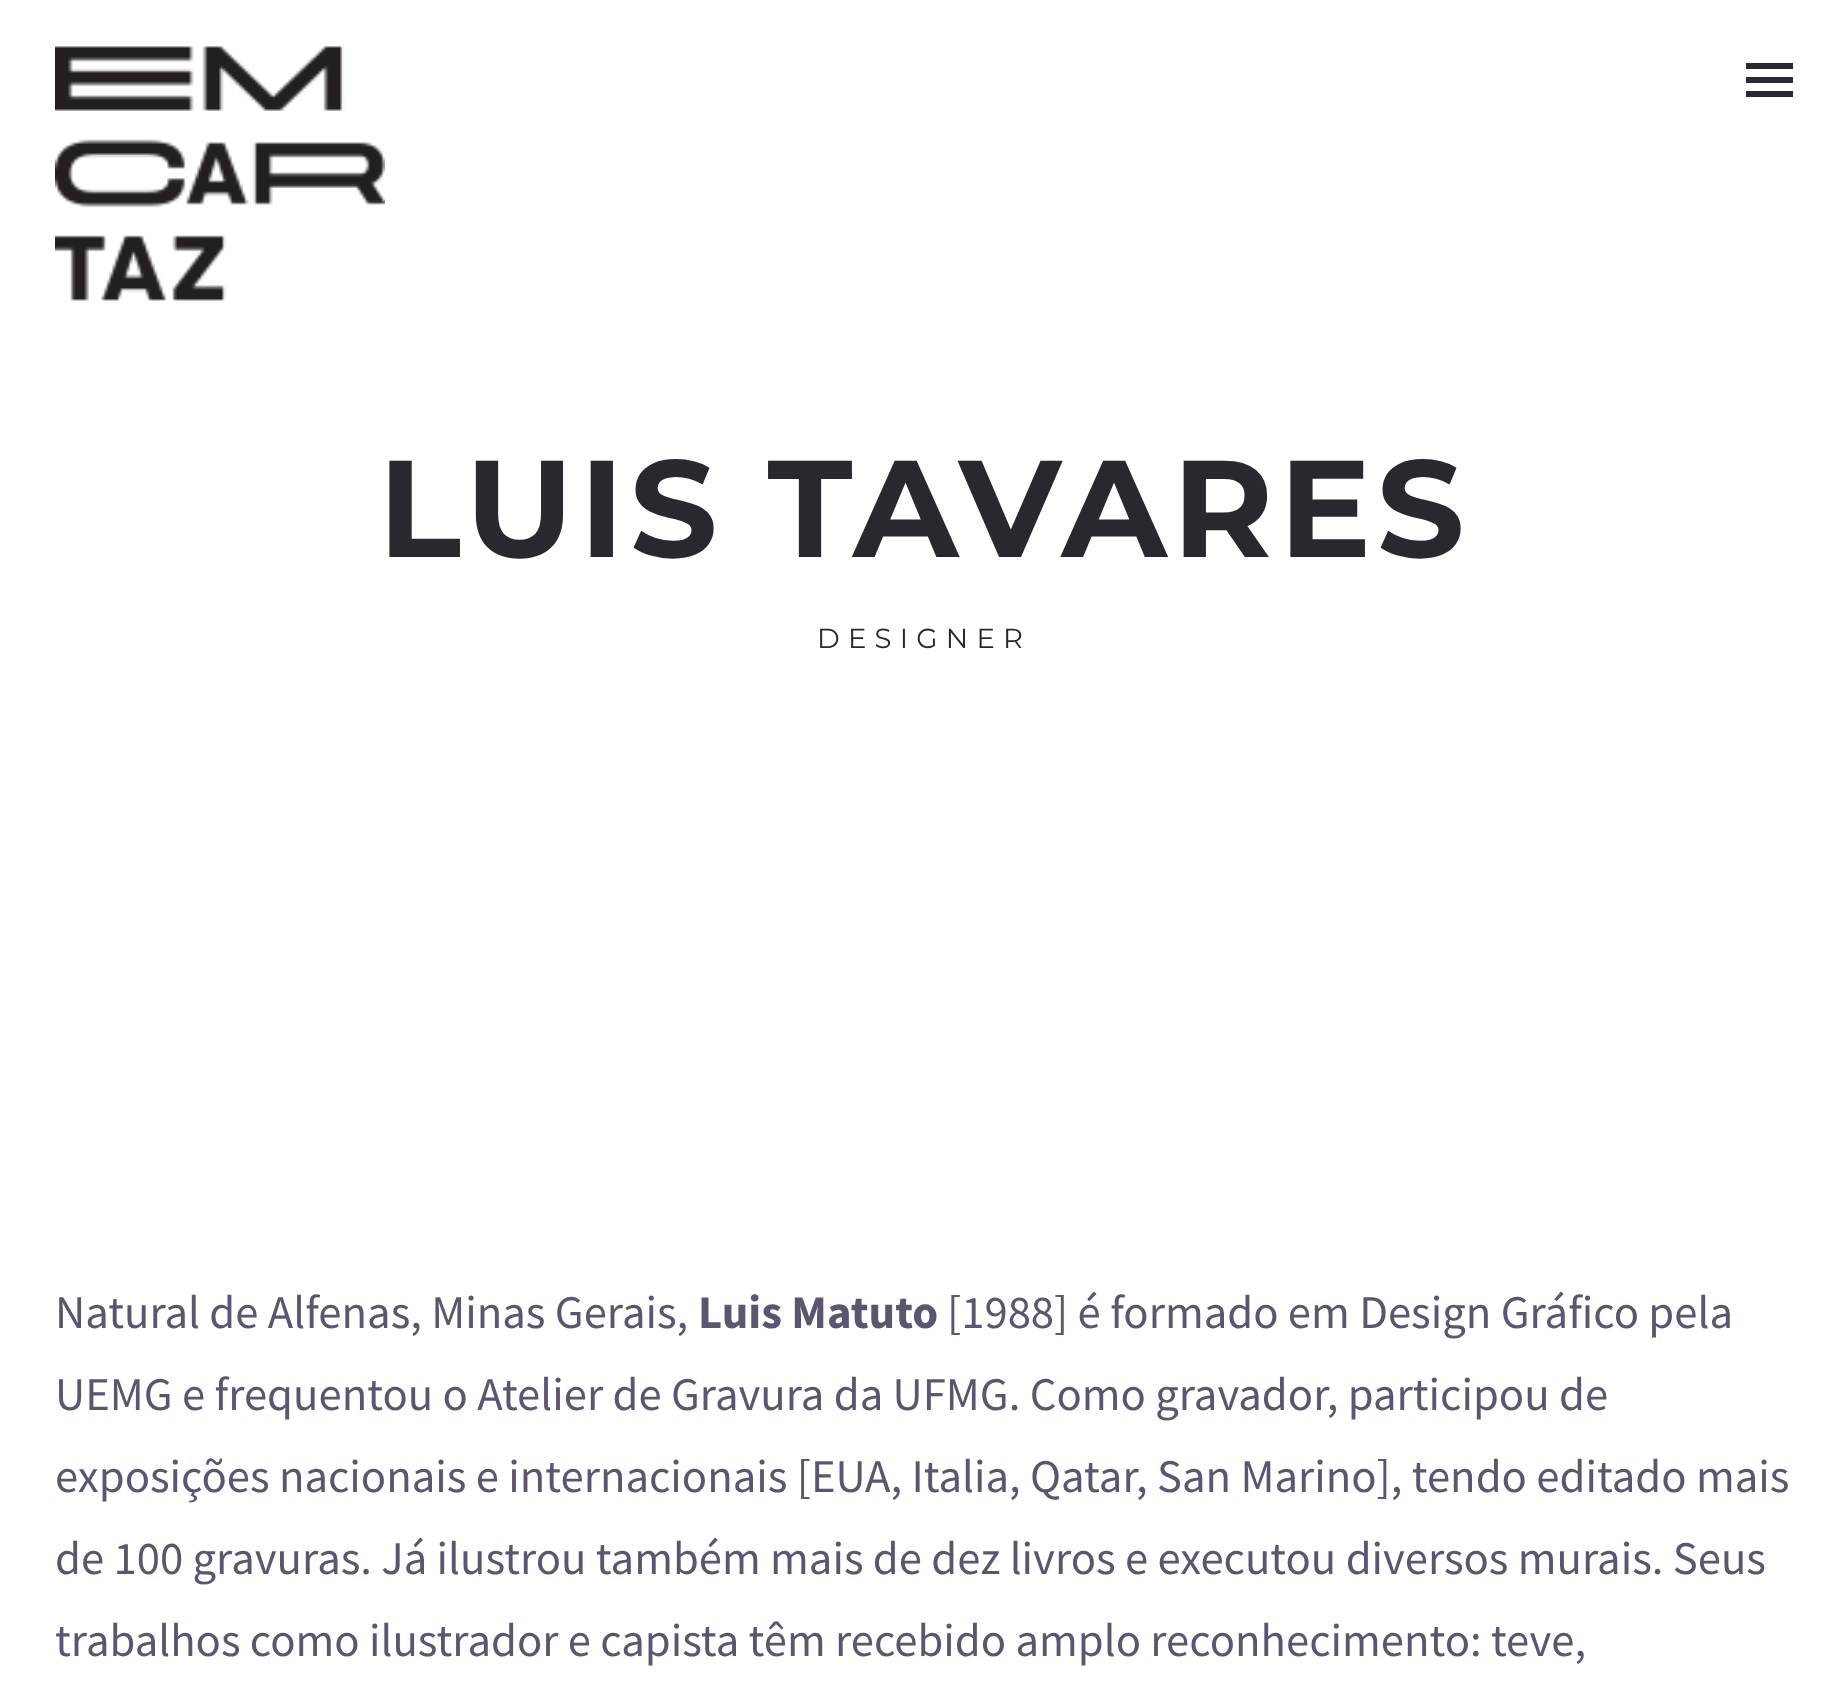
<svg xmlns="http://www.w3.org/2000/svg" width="1847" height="1704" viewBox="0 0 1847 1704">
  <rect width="100%" height="100%" fill="rgb(255,255,255)"/>
  <image x="55" y="46" width="330" height="255" href="pic1.png"/>
  <rect x="1746" y="63" width="47" height="6" fill="rgb(40,40,46)"/>
  <rect x="1746" y="77" width="47" height="6" fill="rgb(40,40,46)"/>
  <rect x="1746" y="91" width="47" height="6" fill="rgb(40,40,46)"/>
  <text x="378" y="557" font-family="Montserrat" font-size="137.5" font-weight="bold" letter-spacing="5.5" fill="rgb(40,40,46)">LUIS TAVARES</text>
  <text x="817" y="648" font-family="Montserrat" font-size="27.5" letter-spacing="8.25" fill="rgb(40,40,46)">DESIGNER</text>
  <text x="55" y="1328" font-family="Source Sans Pro" font-size="46.75" fill="rgb(93,85,111)">Natural de Alfenas, Minas Gerais,</text>
  <text x="698" y="1328" font-family="Source Sans Pro" font-size="46.75" font-weight="bold" fill="rgb(93,85,111)">Luis Matuto</text>
  <g font-family="Source Sans Pro" font-size="46.75" fill="rgb(93,85,111)">
    <text x="947" y="1328">[1988] é formado em Design Gráfico pela</text>
    <text>
      <tspan x="55" y="1410">UEMG e frequentou o Atelier de Gravura da UFMG. Como gravador, participou de</tspan>
      <tspan x="55" y="1492">exposições nacionais e internacionais [EUA, Italia, Qatar, San Marino], tendo editado mais</tspan>
      <tspan x="55" y="1574">de 100 gravuras. Já ilustrou também mais de dez livros e executou diversos murais. Seus</tspan>
      <tspan x="55" y="1656">trabalhos como ilustrador e capista têm recebido amplo reconhecimento: teve,</tspan>
    </text>
  </g>
</svg>
